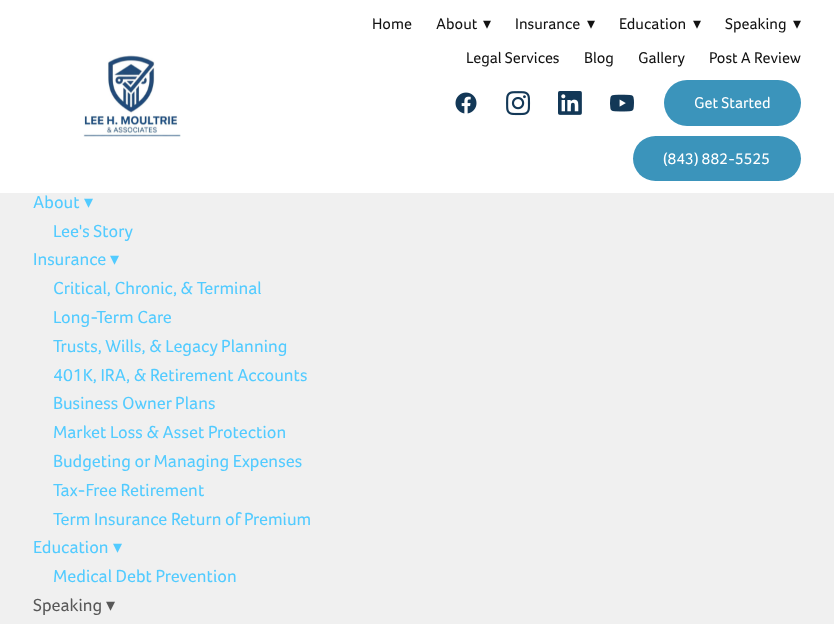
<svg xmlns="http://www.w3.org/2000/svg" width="834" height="624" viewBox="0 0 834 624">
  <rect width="100%" height="100%" fill="rgb(240,240,240)"/>
  <rect x="0" y="0" width="834" height="193" fill="rgb(255,255,255)"/>
  <image x="83" y="55" width="98" height="82" href="pic1.png"/>
  <g font-family="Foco" font-size="16" fill="rgb(18,18,18)">
    <text x="372" y="29">Home</text>
    <text x="436" y="29">About</text>
  </g>
  <text x="483" y="29" font-family="DejaVu Sans" font-size="16" fill="rgb(18,18,18)">▾</text>
  <text x="515" y="29" font-family="Foco" font-size="16" fill="rgb(18,18,18)">Insurance</text>
  <text x="587" y="29" font-family="DejaVu Sans" font-size="16" fill="rgb(18,18,18)">▾</text>
  <text x="619" y="29" font-family="Foco" font-size="16" fill="rgb(18,18,18)">Education</text>
  <text x="693" y="29" font-family="DejaVu Sans" font-size="16" fill="rgb(18,18,18)">▾</text>
  <text x="725" y="29" font-family="Foco" font-size="16" fill="rgb(18,18,18)">Speaking</text>
  <text x="793" y="29" font-family="DejaVu Sans" font-size="16" fill="rgb(18,18,18)">▾</text>
  <g font-family="Foco" font-size="16" fill="rgb(18,18,18)">
    <text x="466" y="63">Legal Services</text>
    <text x="584" y="63">Blog</text>
    <text x="638" y="63">Gallery</text>
    <text x="709" y="63">Post A Review</text>
  </g>
  <image x="455" y="92" width="22" height="22" href="pic2.png"/>
  <image x="506" y="91" width="25" height="25" href="pic3.png"/>
  <image x="558" y="91" width="24" height="24" href="pic4.png"/>
  <image x="610" y="94" width="24" height="18" href="pic5.png"/>
  <rect x="664" y="80" width="137" height="46" rx="23" fill="rgb(59,148,187)"/>
  <text x="694" y="108" font-family="Foco" font-size="16" fill="rgb(255,255,255)">Get Started</text>
  <rect x="633" y="136" width="168" height="45" rx="22.5" fill="rgb(59,148,187)"/>
  <text x="663" y="164" font-family="Foco" font-size="16" fill="rgb(255,255,255)">(843) 882-5525</text>
  <text x="33" y="208" font-family="Foco" font-size="18" fill="rgb(82,203,255)">About</text>
  <text x="84" y="208" font-family="DejaVu Sans" font-size="18" fill="rgb(82,203,255)">▾</text>
  <g font-family="Foco" font-size="18" fill="rgb(82,203,255)">
    <text x="53" y="237">Lee's Story</text>
    <text x="33" y="265">Insurance</text>
  </g>
  <text x="110" y="265" font-family="DejaVu Sans" font-size="18" fill="rgb(82,203,255)">▾</text>
  <g font-family="Foco" font-size="18" fill="rgb(82,203,255)">
    <text>
      <tspan x="53" y="294">Critical, Chronic, &amp; Terminal</tspan>
      <tspan x="53" y="323">Long-Term Care</tspan>
      <tspan x="53" y="352">Trusts, Wills, &amp; Legacy Planning</tspan>
      <tspan x="53" y="381">401K, IRA, &amp; Retirement Accounts</tspan>
      <tspan x="53" y="409">Business Owner Plans</tspan>
      <tspan x="53" y="438">Market Loss &amp; Asset Protection</tspan>
      <tspan x="53" y="467">Budgeting or Managing Expenses</tspan>
      <tspan x="53" y="496">Tax-Free Retirement</tspan>
      <tspan x="53" y="525">Term Insurance Return of Premium</tspan>
    </text>
    <text x="33" y="553">Education</text>
  </g>
  <text x="113" y="553" font-family="DejaVu Sans" font-size="18" fill="rgb(82,203,255)">▾</text>
  <text x="53" y="582" font-family="Foco" font-size="18" fill="rgb(82,203,255)">Medical Debt Prevention</text>
  <text x="33" y="611" font-family="Foco" font-size="18" fill="rgb(88,88,88)">Speaking</text>
  <text x="106" y="611" font-family="DejaVu Sans" font-size="18" fill="rgb(88,88,88)">▾</text>
</svg>
